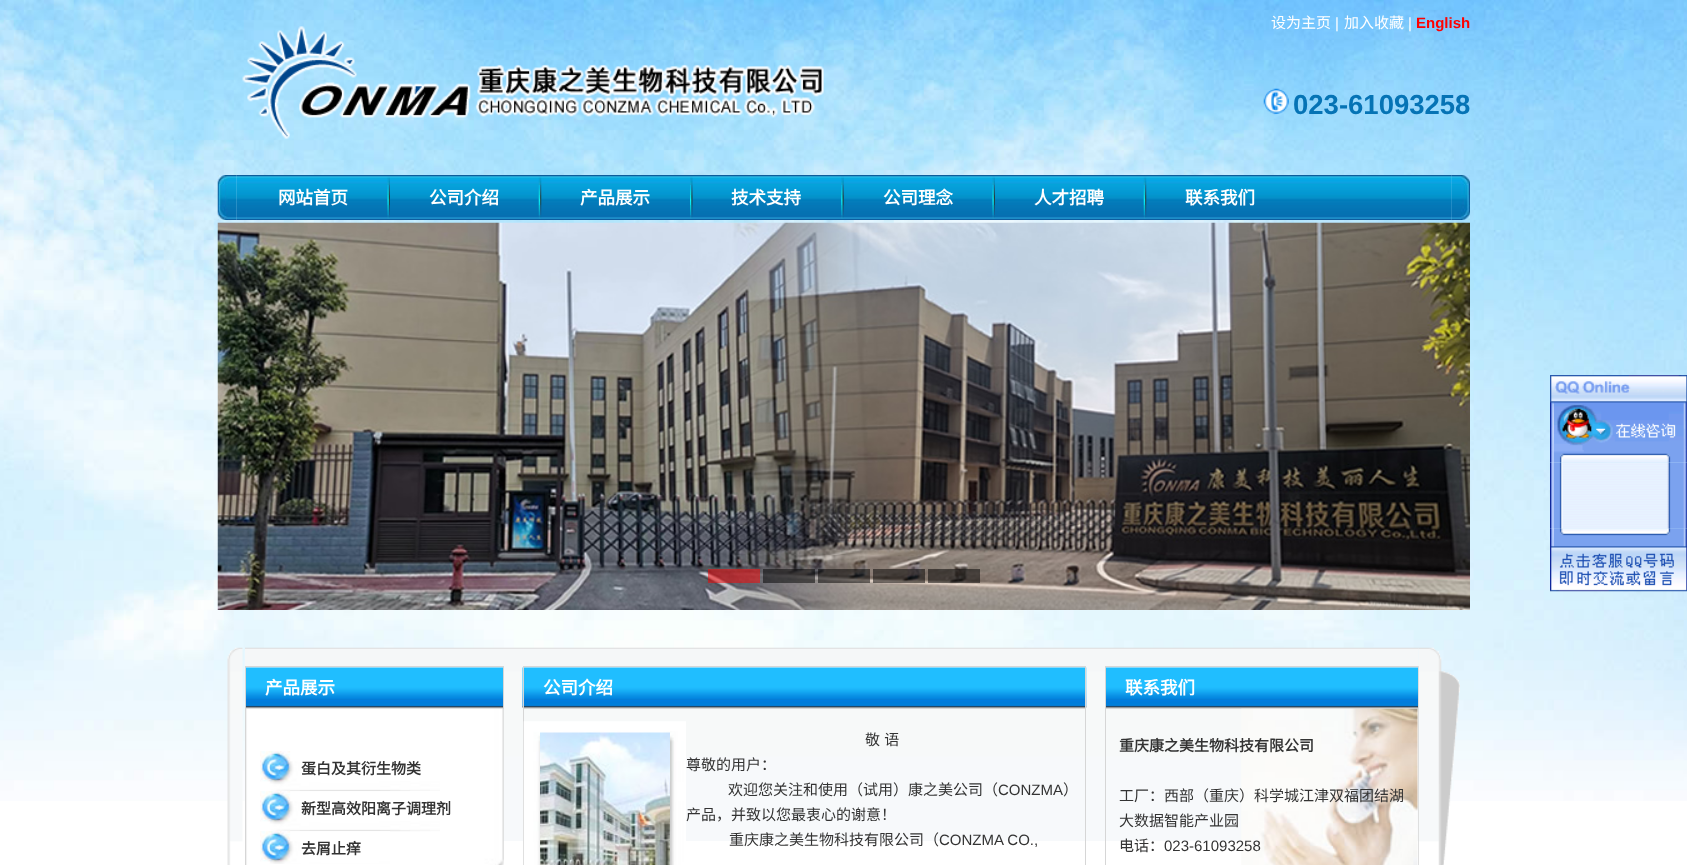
<svg xmlns="http://www.w3.org/2000/svg" width="1687" height="865" viewBox="0 0 1687 865">
  <rect width="100%" height="100%" fill="rgb(255,255,255)"/>
  <image x="0" y="0" width="1687" height="801" href="pic1.png"/>
  <text x="1271" y="28" font-family="Noto Sans CJK SC" font-size="15" fill="rgb(255,255,255)">设为主页</text>
  <text x="1335" y="28" font-family="Liberation Sans" font-size="15" fill="rgb(255,255,255)">|</text>
  <text x="1344" y="28" font-family="Noto Sans CJK SC" font-size="15" fill="rgb(255,255,255)">加入收藏</text>
  <text x="1408" y="28" font-family="Liberation Sans" font-size="15" fill="rgb(255,255,255)">|</text>
  <text x="1416" y="28" font-family="Liberation Sans" font-size="15" font-weight="bold" fill="rgb(255,0,0)">English</text>
  <image x="242" y="26" width="582" height="113" href="pic2.png"/>
  <image x="1263" y="88" width="26" height="26" href="pic3.png"/>
  <text x="1293" y="114" font-family="Liberation Sans" font-size="27.5" font-weight="bold" fill="rgb(5,115,181)">023-61093258</text>
  <image x="217" y="175" width="20" height="45" href="pic4.png"/>
  <image x="236" y="175" width="1216" height="45" href="pic5.png"/>
  <text x="278" y="204" font-family="Noto Sans CJK SC" font-size="17.5" font-weight="bold" fill="rgb(255,255,255)">网站首页</text>
  <image x="387" y="176" width="3" height="43" href="pic6.png"/>
  <text x="429" y="204" font-family="Noto Sans CJK SC" font-size="17.5" font-weight="bold" fill="rgb(255,255,255)">公司介绍</text>
  <image x="538" y="176" width="4" height="43" href="pic7.png"/>
  <text x="580" y="204" font-family="Noto Sans CJK SC" font-size="17.5" font-weight="bold" fill="rgb(255,255,255)">产品展示</text>
  <image x="690" y="176" width="3" height="43" href="pic8.png"/>
  <text x="731" y="204" font-family="Noto Sans CJK SC" font-size="17.5" font-weight="bold" fill="rgb(255,255,255)">技术支持</text>
  <image x="841" y="176" width="3" height="43" href="pic9.png"/>
  <text x="883" y="204" font-family="Noto Sans CJK SC" font-size="17.5" font-weight="bold" fill="rgb(255,255,255)">公司理念</text>
  <image x="992" y="176" width="3" height="43" href="pic6.png"/>
  <text x="1034" y="204" font-family="Noto Sans CJK SC" font-size="17.5" font-weight="bold" fill="rgb(255,255,255)">人才招聘</text>
  <image x="1143" y="176" width="4" height="43" href="pic10.png"/>
  <text x="1185" y="204" font-family="Noto Sans CJK SC" font-size="17.5" font-weight="bold" fill="rgb(255,255,255)">联系我们</text>
  <image x="1451" y="175" width="19" height="45" href="pic11.png"/>
  <image x="217" y="222" width="1253" height="388" href="pic12.png"/>
  <rect x="708" y="569" width="52" height="14" fill="rgba(255,0,0,0.5)"/>
  <rect x="763" y="569" width="52" height="14" fill="rgba(0,0,0,0.5)"/>
  <rect x="818" y="569" width="52" height="14" fill="rgba(0,0,0,0.5)"/>
  <rect x="873" y="569" width="52" height="14" fill="rgba(0,0,0,0.5)"/>
  <rect x="928" y="569" width="52" height="14" fill="rgba(0,0,0,0.5)"/>
  <image x="1550" y="375" width="137" height="88" href="pic13.png"/>
  <image x="1550" y="462" width="137" height="67" href="pic14.png"/>
  <image x="1550" y="528" width="137" height="64" href="pic15.png"/>
  <image x="227" y="647" width="16" height="218" href="pic16.png"/>
  <image x="245" y="647" width="1174" height="194" href="pic17.png"/>
  <image x="246" y="667" width="257" height="41" href="pic18.png"/>
  <rect x="245.5" y="666.5" width="258" height="42" fill="none" stroke="rgb(214,214,214)"/>
  <text x="265" y="694" font-family="Noto Sans CJK SC" font-size="17.5" font-weight="bold" fill="rgb(255,255,255)">产品展示</text>
  <image x="245" y="708" width="259" height="157" href="pic19.png"/>
  <image x="260" y="751" width="180" height="41" href="pic20.png"/>
  <text x="301" y="774" font-family="Noto Sans CJK SC" font-size="15" font-weight="bold" fill="rgb(51,51,51)">蛋白及其衍生物类</text>
  <image x="260" y="791" width="180" height="41" href="pic21.png"/>
  <text x="301" y="814" font-family="Noto Sans CJK SC" font-size="15" font-weight="bold" fill="rgb(51,51,51)">新型高效阳离子调理剂</text>
  <image x="260" y="831" width="130" height="33" href="pic22.png"/>
  <text x="301" y="854" font-family="Noto Sans CJK SC" font-size="15" font-weight="bold" fill="rgb(51,51,51)">去屑止痒</text>
  <image x="522" y="667" width="565" height="41" href="pic23.png"/>
  <rect x="523.5" y="666.5" width="562" height="42" fill="none" stroke="rgb(214,214,214)"/>
  <text x="543" y="694" font-family="Noto Sans CJK SC" font-size="17.5" font-weight="bold" fill="rgb(255,255,255)">公司介绍</text>
  <rect x="1085" y="709" width="1" height="156" fill="rgb(214,214,214)"/>
  <rect x="523" y="709" width="1" height="156" fill="rgb(214,214,214)"/>
  <image x="523" y="721" width="163" height="144" href="pic24.png"/>
  <image x="540" y="732" width="130" height="133" href="pic25.png"/>
  <g font-family="Noto Sans CJK SC" font-size="15" fill="rgb(51,51,51)">
    <text x="865" y="745" word-spacing="1">敬 语</text>
    <text x="686" y="770">尊敬的用户：</text>
    <text x="728" y="795">欢迎您关注和使用（试用）康之美公司（</text>
  </g>
  <text x="998" y="795" font-family="Liberation Sans" font-size="15" fill="rgb(51,51,51)">CONZMA</text>
  <g font-family="Noto Sans CJK SC" font-size="15" fill="rgb(51,51,51)">
    <text x="1063" y="795">）</text>
    <text x="686" y="820">产品，并致以您最衷心的谢意！</text>
    <text x="729" y="845">重庆康之美生物科技有限公司（</text>
  </g>
  <text x="939" y="845" font-family="Liberation Sans" font-size="15" fill="rgb(51,51,51)">CONZMA CO.,</text>
  <image x="1106" y="667" width="312" height="41" href="pic26.png"/>
  <rect x="1105.5" y="666.5" width="313" height="42" fill="none" stroke="rgb(214,214,214)"/>
  <text x="1125" y="694" font-family="Noto Sans CJK SC" font-size="17.5" font-weight="bold" fill="rgb(255,255,255)">联系我们</text>
  <image x="1241" y="708" width="177" height="157" href="pic27.png"/>
  <rect x="1418" y="709" width="1" height="156" fill="rgb(214,214,214)"/>
  <rect x="1105" y="709" width="1" height="156" fill="rgb(214,214,214)"/>
  <text x="1119" y="751" font-family="Noto Sans CJK SC" font-size="15" font-weight="bold" fill="rgb(51,51,51)">重庆康之美生物科技有限公司</text>
  <g font-family="Noto Sans CJK SC" font-size="15" fill="rgb(51,51,51)">
    <text>
      <tspan x="1119" y="801">工厂：西部（重庆）科学城江津双福团结湖</tspan>
      <tspan x="1119" y="826">大数据智能产业园</tspan>
      <tspan x="1119" y="851">电话：</tspan>
    </text>
  </g>
  <text x="1164" y="851" font-family="Liberation Sans" font-size="15" fill="rgb(51,51,51)">023-61093258</text>
  <image x="1418" y="647" width="42" height="218" href="pic28.png"/>
</svg>
